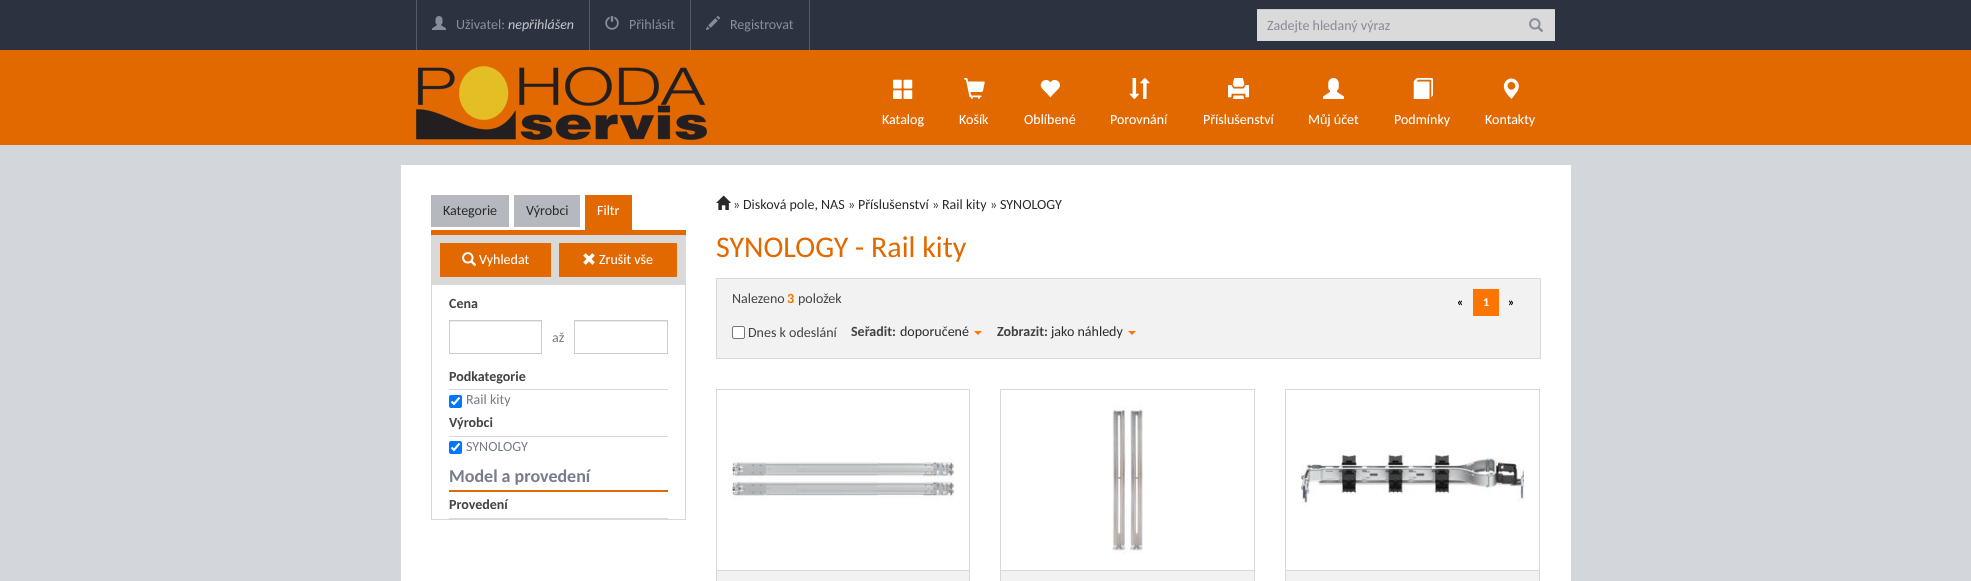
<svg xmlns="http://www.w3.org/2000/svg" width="1971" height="581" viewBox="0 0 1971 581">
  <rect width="100%" height="100%" fill="rgb(211,214,219)"/>
  <rect x="0" y="0" width="1971" height="50" fill="rgb(44,50,63)"/>
  <rect x="416" y="0" width="1" height="50" fill="rgb(86,91,103)"/>
  <image x="432" y="16" width="14" height="14" href="pic1.png"/>
  <text x="456" y="29" font-family="Carlito" font-size="14" fill="rgb(136,141,155)">Uživatel:</text>
  <text x="508" y="29" font-family="Carlito" font-size="14" font-style="italic" fill="rgb(191,194,202)">nepřihlášen</text>
  <rect x="589" y="0" width="1" height="50" fill="rgb(86,91,103)"/>
  <image x="605" y="16" width="14" height="14" href="pic2.png"/>
  <text x="629" y="29" font-family="Carlito" font-size="14" fill="rgb(136,141,155)">Přihlásit</text>
  <rect x="809" y="0" width="1" height="50" fill="rgb(86,91,103)"/>
  <rect x="690" y="0" width="1" height="50" fill="rgb(86,91,103)"/>
  <image x="706" y="16" width="14" height="14" href="pic3.png"/>
  <text x="730" y="29" font-family="Carlito" font-size="14" fill="rgb(136,141,155)">Registrovat</text>
  <rect x="1257" y="10" width="298" height="31" fill="rgb(219,218,218)"/>
  <rect x="1257" y="9" width="298" height="1" fill="rgb(203,202,202)"/>
  <text x="1267" y="30" font-family="Carlito" font-size="14" fill="rgb(136,141,155)">Zadejte hledaný výraz</text>
  <image x="1529" y="18" width="14" height="14" href="pic4.png"/>
  <rect x="0" y="50" width="1971" height="95" fill="rgb(226,105,0)"/>
  <image x="416" y="66" width="291" height="74" href="pic5.png"/>
  <image x="893" y="79" width="20" height="20" href="pic6.png"/>
  <text x="882" y="124" font-family="Carlito" font-size="14" fill="rgb(255,255,255)">Katalog</text>
  <image x="964" y="78" width="21" height="21" href="pic7.png"/>
  <text x="959" y="124" font-family="Carlito" font-size="14" fill="rgb(255,255,255)">Košík</text>
  <image x="1040" y="79" width="20" height="19" href="pic8.png"/>
  <text x="1024" y="124" font-family="Carlito" font-size="14" fill="rgb(255,255,255)">Oblíbené</text>
  <image x="1129" y="78" width="21" height="21" href="pic9.png"/>
  <text x="1110" y="124" font-family="Carlito" font-size="14" fill="rgb(255,255,255)">Porovnání</text>
  <image x="1228" y="78" width="21" height="21" href="pic10.png"/>
  <text x="1203" y="124" font-family="Carlito" font-size="14" fill="rgb(255,255,255)">Příslušenství</text>
  <image x="1323" y="78" width="21" height="21" href="pic11.png"/>
  <text x="1308" y="124" font-family="Carlito" font-size="14" fill="rgb(255,255,255)">Můj účet</text>
  <image x="1413" y="78" width="20" height="21" href="pic12.png"/>
  <text x="1394" y="124" font-family="Carlito" font-size="14" fill="rgb(255,255,255)">Podmínky</text>
  <image x="1503" y="78" width="16" height="21" href="pic13.png"/>
  <text x="1485" y="124" font-family="Carlito" font-size="14" fill="rgb(255,255,255)">Kontakty</text>
  <rect x="401" y="165" width="1170" height="416" fill="rgb(255,255,255)"/>
  <rect x="431" y="230" width="255" height="5" fill="rgb(226,105,0)"/>
  <rect x="431" y="195" width="78" height="32" fill="rgb(181,185,191)"/>
  <text x="443" y="215" font-family="Carlito" font-size="14" fill="rgb(42,42,42)">Kategorie</text>
  <rect x="514" y="195" width="66" height="32" fill="rgb(181,185,191)"/>
  <text x="526" y="215" font-family="Carlito" font-size="14" fill="rgb(42,42,42)">Výrobci</text>
  <rect x="585" y="195" width="47" height="35" fill="rgb(226,105,0)"/>
  <text x="597" y="215" font-family="Carlito" font-size="14" fill="rgb(255,255,255)">Filtr</text>
  <rect x="685" y="235" width="1" height="285" fill="rgb(217,217,217)"/>
  <rect x="431" y="519" width="255" height="1" fill="rgb(217,217,217)"/>
  <rect x="431" y="235" width="1" height="285" fill="rgb(217,217,217)"/>
  <rect x="432" y="235" width="253" height="50" fill="rgb(217,217,217)"/>
  <rect x="440" y="243" width="111" height="34" fill="rgb(226,105,0)"/>
  <image x="462" y="252" width="15" height="14" href="pic14.png"/>
  <text x="479" y="264" font-family="Carlito" font-size="14" fill="rgb(255,255,255)">Vyhledat</text>
  <rect x="559" y="243" width="118" height="34" fill="rgb(226,105,0)"/>
  <image x="583" y="253" width="12" height="12" href="pic15.png"/>
  <text x="599" y="264" font-family="Carlito" font-size="14" fill="rgb(255,255,255)">Zrušit vše</text>
  <text x="449" y="308" font-family="Carlito" font-size="14" font-weight="bold" fill="rgb(68,68,68)">Cena</text>
  <rect x="450" y="321" width="91" height="1" fill="rgb(236,236,236)"/>
  <rect x="449.5" y="320.5" width="92" height="33" fill="none" stroke="rgb(204,204,204)"/>
  <text x="552" y="342" font-family="Carlito" font-size="14" fill="rgb(119,125,140)">až</text>
  <rect x="575" y="321" width="92" height="1" fill="rgb(236,236,236)"/>
  <rect x="574.5" y="320.5" width="93" height="33" fill="none" stroke="rgb(204,204,204)"/>
  <rect x="449" y="389" width="219" height="1" fill="rgb(217,217,217)"/>
  <text x="449" y="381" font-family="Carlito" font-size="14" font-weight="bold" fill="rgb(68,68,68)">Podkategorie</text>
  <rect x="449" y="395" width="13" height="13" rx="2" fill="rgb(0,117,255)"/>
  <path d="M451.5 401.5L454 404L459.5 397.5" fill="none" stroke="rgb(255,255,255)" stroke-width="2.1"/>
  <text x="466" y="404" font-family="Carlito" font-size="14" fill="rgb(119,125,140)">Rail kity</text>
  <rect x="449" y="436" width="219" height="1" fill="rgb(217,217,217)"/>
  <text x="449" y="427" font-family="Carlito" font-size="14" font-weight="bold" fill="rgb(68,68,68)">Výrobci</text>
  <rect x="449" y="441" width="13" height="13" rx="2" fill="rgb(0,117,255)"/>
  <path d="M451.5 447.5L454 450L459.5 443.5" fill="none" stroke="rgb(255,255,255)" stroke-width="2.1"/>
  <text x="466" y="451" font-family="Carlito" font-size="14" fill="rgb(119,125,140)">SYNOLOGY</text>
  <rect x="449" y="490" width="219" height="2" fill="rgb(226,105,0)"/>
  <text x="449" y="482" font-family="Carlito" font-size="18" font-weight="bold" fill="rgb(119,125,140)">Model a provedení</text>
  <rect x="449" y="518" width="219" height="1" fill="rgb(217,217,217)"/>
  <text x="449" y="509" font-family="Carlito" font-size="14" font-weight="bold" fill="rgb(68,68,68)">Provedení</text>
  <image x="716" y="195" width="15" height="15" href="pic16.png"/>
  <text x="733" y="209" font-family="Carlito" font-size="14" fill="rgb(68,68,68)">»</text>
  <text x="743" y="209" font-family="Carlito" font-size="14" fill="rgb(42,42,42)">Disková pole, NAS</text>
  <text x="848" y="209" font-family="Carlito" font-size="14" fill="rgb(68,68,68)">»</text>
  <text x="858" y="209" font-family="Carlito" font-size="14" fill="rgb(42,42,42)">Příslušenství</text>
  <text x="932" y="209" font-family="Carlito" font-size="14" fill="rgb(68,68,68)">»</text>
  <text x="942" y="209" font-family="Carlito" font-size="14" fill="rgb(42,42,42)">Rail kity</text>
  <text x="990" y="209" font-family="Carlito" font-size="14" fill="rgb(68,68,68)">»</text>
  <text x="1000" y="209" font-family="Carlito" font-size="14" fill="rgb(42,42,42)">SYNOLOGY</text>
  <text x="716" y="257" font-family="Carlito" font-size="30" fill="rgb(226,105,0)">SYNOLOGY - Rail kity</text>
  <rect x="716.5" y="278.5" width="824" height="80" fill="rgb(242,242,242)" stroke="rgb(217,217,217)"/>
  <text x="732" y="303" font-family="Carlito" font-size="14" fill="rgb(68,68,68)">Nalezeno</text>
  <text x="787" y="303" font-family="Carlito" font-size="14" font-weight="bold" fill="rgb(251,117,0)">3</text>
  <text x="798" y="303" font-family="Carlito" font-size="14" fill="rgb(68,68,68)">položek</text>
  <text x="1457" y="306" font-family="Carlito" font-size="12" font-weight="bold" fill="rgb(0,0,0)">«</text>
  <rect x="1473" y="289" width="26" height="27" fill="rgb(251,117,0)"/>
  <text x="1483" y="306" font-family="Carlito" font-size="12" font-weight="bold" fill="rgb(255,255,255)">1</text>
  <text x="1508" y="306" font-family="Carlito" font-size="12" font-weight="bold" fill="rgb(0,0,0)">»</text>
  <rect x="732.5" y="326.5" width="12" height="12" rx="1.5" fill="rgb(255,255,255)" stroke="rgb(118,118,118)"/>
  <text x="748" y="337" font-family="Carlito" font-size="14" fill="rgb(68,68,68)">Dnes k odeslání</text>
  <text x="851" y="336" font-family="Carlito" font-size="14" font-weight="bold" fill="rgb(68,68,68)">Seřadit:</text>
  <text x="900" y="336" font-family="Carlito" font-size="14" fill="rgb(42,42,42)">doporučené</text>
  <path d="M974 331H982L978 335Z" fill="rgb(251,117,0)"/>
  <text x="997" y="336" font-family="Carlito" font-size="14" font-weight="bold" fill="rgb(68,68,68)">Zobrazit:</text>
  <text x="1051" y="336" font-family="Carlito" font-size="14" fill="rgb(42,42,42)">jako náhledy</text>
  <path d="M1128 331H1136L1132 335Z" fill="rgb(251,117,0)"/>
  <rect x="717" y="571" width="252" height="10" fill="rgb(242,242,242)"/>
  <rect x="716.5" y="389.5" width="253" height="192" fill="none" stroke="rgb(217,217,217)"/>
  <image x="732" y="457" width="222" height="43" href="pic17.png"/>
  <rect x="717" y="570" width="252" height="1" fill="rgb(217,217,217)"/>
  <rect x="1001" y="571" width="253" height="10" fill="rgb(242,242,242)"/>
  <rect x="1000.5" y="389.5" width="254" height="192" fill="none" stroke="rgb(217,217,217)"/>
  <image x="1112" y="405" width="31" height="148" href="pic18.png"/>
  <rect x="1001" y="570" width="253" height="1" fill="rgb(217,217,217)"/>
  <rect x="1286" y="571" width="253" height="10" fill="rgb(242,242,242)"/>
  <rect x="1285.5" y="389.5" width="254" height="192" fill="none" stroke="rgb(217,217,217)"/>
  <image x="1301" y="450" width="223" height="56" href="pic19.png"/>
  <rect x="1286" y="570" width="253" height="1" fill="rgb(217,217,217)"/>
</svg>
